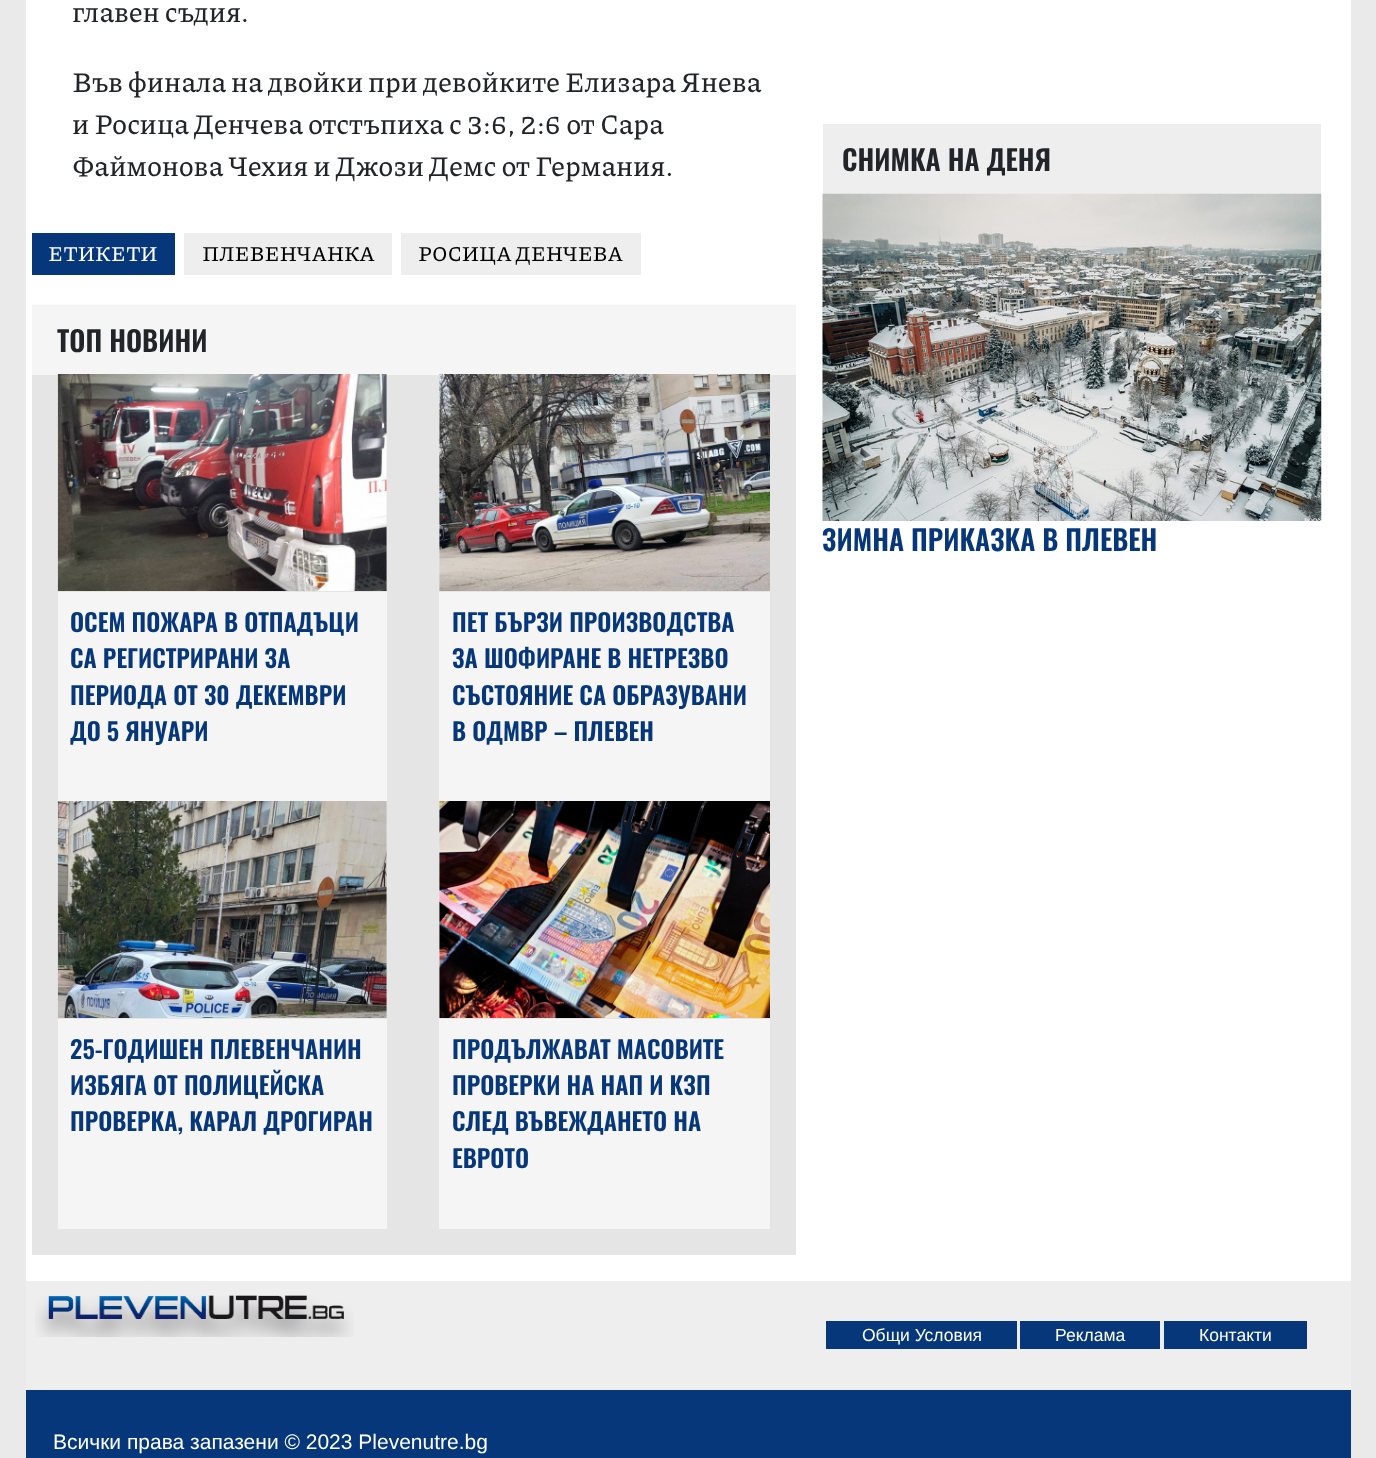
<svg xmlns="http://www.w3.org/2000/svg" width="1376" height="1458" viewBox="0 0 1376 1458">
  <rect width="100%" height="100%" fill="rgb(234,234,234)"/>
  <rect x="26" y="0" width="1325" height="1281" fill="rgb(255,255,255)"/>
  <g font-family="Piazzolla" font-size="28" font-weight="100" fill="rgb(33,37,41)">
    <text x="72" y="22">главен съдия.</text>
    <text>
      <tspan x="72" y="92">Във финала на двойки при девойките Елизара Янева</tspan>
      <tspan x="72" y="134">и Росица Денчева отстъпиха с 3:6, 2:6 от Сара</tspan>
      <tspan x="72" y="176">Файмонова Чехия и Джози Демс от Германия.</tspan>
    </text>
  </g>
  <rect x="32" y="233" width="143" height="42" fill="rgb(6,55,123)"/>
  <text x="48" y="261" font-family="Piazzolla" font-size="21" font-weight="100" fill="rgb(255,255,255)">ЕТИКЕТИ</text>
  <rect x="184" y="233" width="208" height="42" fill="rgb(238,238,238)"/>
  <text x="202" y="261" font-family="Piazzolla" font-size="21" font-weight="100" fill="rgb(0,0,0)">ПЛЕВЕНЧАНКА</text>
  <rect x="401" y="233" width="240" height="42" fill="rgb(238,238,238)"/>
  <text x="418" y="261" word-spacing="-1" font-family="Piazzolla" font-size="21" font-weight="100" fill="rgb(0,0,0)">РОСИЦА ДЕНЧЕВА</text>
  <rect x="32" y="375" width="764" height="880" fill="rgb(229,229,229)"/>
  <rect x="32" y="305" width="764" height="70" fill="rgb(245,245,245)"/>
  <text x="57" y="352" font-family="Oswald" font-size="28" font-weight="600" fill="rgb(33,37,41)">ТОП НОВИНИ</text>
  <image x="57" y="374" width="330" height="217" href="pic1.png"/>
  <rect x="58" y="592" width="329" height="210" fill="rgb(245,245,245)"/>
  <g font-family="Oswald" font-size="24.5" font-weight="600" fill="rgb(6,55,123)">
    <text>
      <tspan x="70" y="632">ОСЕМ ПОЖАРА В ОТПАДЪЦИ</tspan>
      <tspan x="70" y="668">СА РЕГИСТРИРАНИ ЗА</tspan>
      <tspan x="70" y="705">ПЕРИОДА ОТ 30 ДЕКЕМВРИ</tspan>
      <tspan x="70" y="741">ДО 5 ЯНУАРИ</tspan>
    </text>
  </g>
  <image x="439" y="374" width="331" height="217" href="pic2.png"/>
  <rect x="439" y="592" width="331" height="210" fill="rgb(245,245,245)"/>
  <g font-family="Oswald" font-size="24.5" font-weight="600" fill="rgb(6,55,123)">
    <text>
      <tspan x="452" y="632">ПЕТ БЪРЗИ ПРОИЗВОДСТВА</tspan>
      <tspan x="452" y="668">ЗА ШОФИРАНЕ В НЕТРЕЗВО</tspan>
      <tspan x="452" y="705">СЪСТОЯНИЕ СА ОБРАЗУВАНИ</tspan>
      <tspan x="452" y="741">В ОДМВР – ПЛЕВЕН</tspan>
    </text>
  </g>
  <image x="57" y="801" width="330" height="217" href="pic3.png"/>
  <rect x="58" y="1019" width="329" height="210" fill="rgb(245,245,245)"/>
  <g font-family="Oswald" font-size="24.5" font-weight="600" fill="rgb(6,55,123)">
    <text>
      <tspan x="70" y="1059">25-ГОДИШЕН ПЛЕВЕНЧАНИН</tspan>
      <tspan x="70" y="1095">ИЗБЯГА ОТ ПОЛИЦЕЙСКА</tspan>
      <tspan x="70" y="1131">ПРОВЕРКА, КАРАЛ ДРОГИРАН</tspan>
    </text>
  </g>
  <image x="439" y="801" width="331" height="217" href="pic4.png"/>
  <rect x="439" y="1019" width="331" height="210" fill="rgb(245,245,245)"/>
  <g font-family="Oswald" font-size="24.5" font-weight="600" fill="rgb(6,55,123)">
    <text>
      <tspan x="452" y="1059">ПРОДЪЛЖАВАТ МАСОВИТЕ</tspan>
      <tspan x="452" y="1095">ПРОВЕРКИ НА НАП И КЗП</tspan>
      <tspan x="452" y="1131">СЛЕД ВЪВЕЖДАНЕТО НА</tspan>
      <tspan x="452" y="1168">ЕВРОТО</tspan>
    </text>
  </g>
  <rect x="823" y="124" width="498" height="70" fill="rgb(238,238,238)"/>
  <text x="842" y="171" font-family="Oswald" font-size="28" font-weight="600" fill="rgb(33,37,41)">СНИМКА НА ДЕНЯ</text>
  <image x="822" y="193" width="500" height="328" href="pic5.png"/>
  <text x="822" y="551" font-family="Oswald" font-size="28" font-weight="600" fill="rgb(6,55,123)">ЗИМНА ПРИКАЗКА В ПЛЕВЕН</text>
  <rect x="26" y="1390" width="1325" height="68" fill="rgb(6,55,123)"/>
  <rect x="26" y="1281" width="1325" height="109" fill="rgb(238,238,238)"/>
  <image x="35" y="1295" width="319" height="42" href="pic6.png"/>
  <rect x="826" y="1321" width="191" height="28" fill="rgb(6,55,123)"/>
  <text x="862" y="1341" font-family="Liberation Sans" font-size="17.5" fill="rgb(255,255,255)">Общи Условия</text>
  <rect x="1020" y="1321" width="140" height="28" fill="rgb(6,55,123)"/>
  <text x="1055" y="1341" font-family="Liberation Sans" font-size="17.5" fill="rgb(255,255,255)">Реклама</text>
  <rect x="1164" y="1321" width="143" height="28" fill="rgb(6,55,123)"/>
  <text x="1199" y="1341" font-family="Liberation Sans" font-size="17.5" fill="rgb(255,255,255)">Контакти</text>
  <text x="53" y="1449" font-family="Liberation Sans" font-size="21" fill="rgb(255,255,255)">Всички права запазени © 2023 Plevenutre.bg</text>
</svg>
